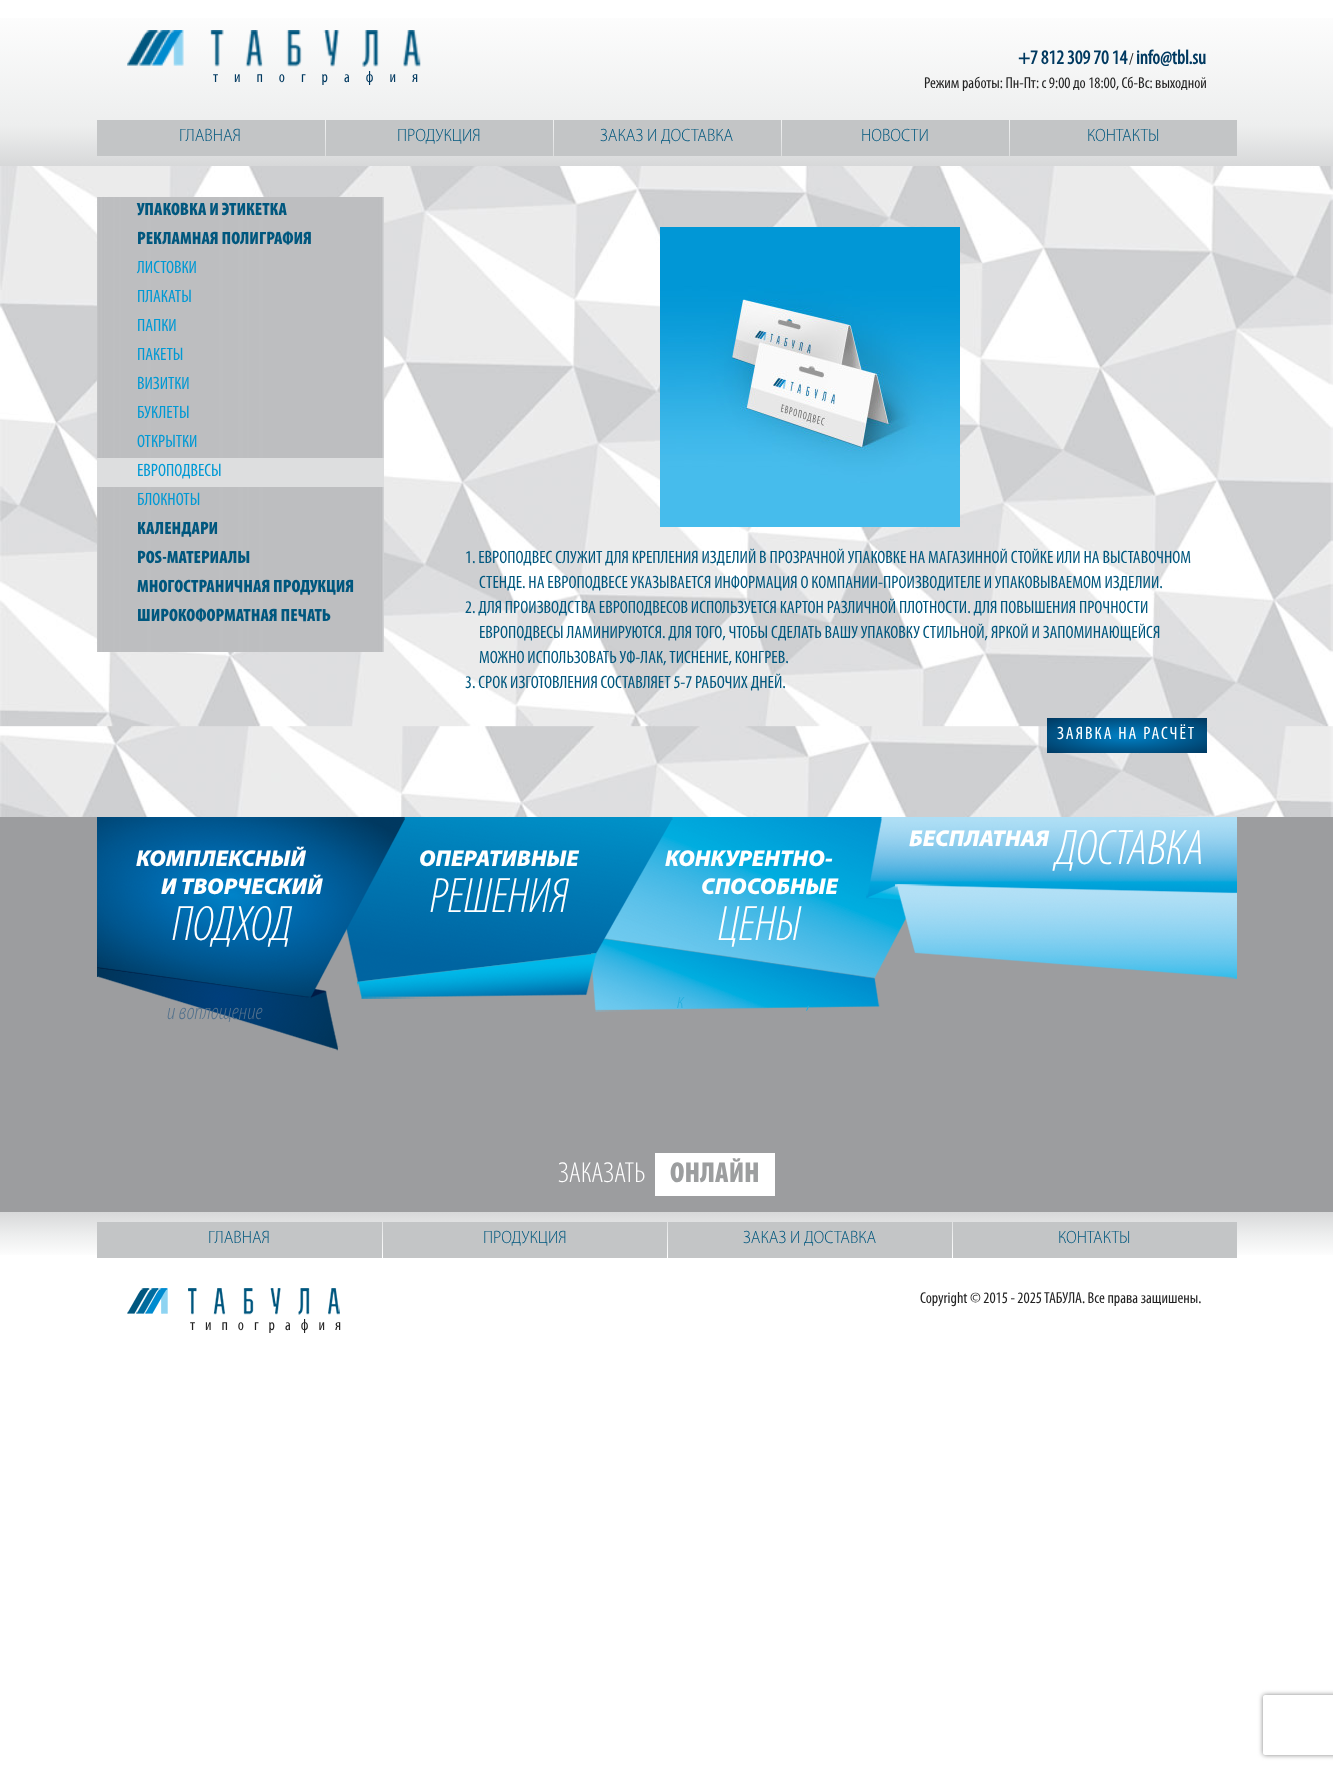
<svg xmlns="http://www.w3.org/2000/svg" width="1333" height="1769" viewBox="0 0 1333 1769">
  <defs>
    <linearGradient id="g1" gradientUnits="userSpaceOnUse" x1="667" y1="0" x2="667" y2="166"><stop offset="0" stop-color="rgb(255,255,255)"/><stop offset="0.76" stop-color="rgb(237,238,238)"/><stop offset="1" stop-color="rgb(215,216,217)"/></linearGradient>
    <radialGradient id="g2" gradientUnits="userSpaceOnUse" cx="0" cy="0" r="1" gradientTransform="matrix(113 0 0 25 1127 736)"><stop offset="0" stop-color="rgb(0,129,198)"/><stop offset="1" stop-color="rgb(0,56,96)"/></radialGradient>
    <linearGradient id="g3" gradientUnits="userSpaceOnUse" x1="667" y1="1212" x2="667" y2="1258"><stop offset="0" stop-color="rgb(215,216,217)"/><stop offset="0.5" stop-color="rgb(237,238,238)"/><stop offset="1" stop-color="rgb(255,255,255)"/></linearGradient>
    <clipPath id="clip1"><path d="M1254 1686H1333V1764H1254ZM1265 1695H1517C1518 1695 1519 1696 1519 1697V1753C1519 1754 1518 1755 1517 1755H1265C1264 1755 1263 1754 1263 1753V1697C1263 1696 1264 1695 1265 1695Z" clip-rule="evenodd"/></clipPath>
  </defs>
  <rect width="100%" height="100%" fill="rgb(255,255,255)"/>
  <rect x="0" y="18" width="1333" height="148" fill="url(#g1)"/>
  <image x="127" y="30" width="294" height="37" href="pic1.png"/>
  <text x="213" y="82" font-family="Myriad" font-size="16" letter-spacing="16" fill="rgb(0,57,96)">типография</text>
  <text x="1018" y="64" font-family="Myriad" font-size="20" font-weight="bold" fill="rgb(0,57,96)">+7 812 309 70 14</text>
  <text x="1129" y="64" font-family="Myriad" font-size="16" fill="rgb(34,34,34)">/</text>
  <text x="1136" y="64" font-family="Myriad" font-size="20" font-weight="bold" fill="rgb(0,57,96)">info@tbl.su</text>
  <text x="924" y="88" font-family="Myriad" font-size="16" fill="rgb(34,34,34)">Режим работы: Пн-Пт: с 9:00 до 18:00, Сб-Вс: выходной</text>
  <rect x="97" y="120" width="228" height="36" fill="rgb(195,197,198)"/>
  <text x="179" y="141" font-family="Myriad" font-size="18" font-weight="300" fill="rgb(0,87,126)">ГЛАВНАЯ</text>
  <rect x="326" y="120" width="227" height="36" fill="rgb(195,197,198)"/>
  <text x="397" y="141" font-family="Myriad" font-size="18" font-weight="300" fill="rgb(0,87,126)">ПРОДУКЦИЯ</text>
  <rect x="554" y="120" width="227" height="36" fill="rgb(195,197,198)"/>
  <text x="600" y="141" font-family="Myriad" font-size="18" font-weight="300" fill="rgb(0,87,126)">ЗАКАЗ И ДОСТАВКА</text>
  <rect x="782" y="120" width="227" height="36" fill="rgb(195,197,198)"/>
  <text x="861" y="141" font-family="Myriad" font-size="18" font-weight="300" fill="rgb(0,87,126)">НОВОСТИ</text>
  <rect x="1010" y="120" width="227" height="36" fill="rgb(195,197,198)"/>
  <text x="1087" y="141" font-family="Myriad" font-size="18" font-weight="300" fill="rgb(0,87,126)">КОНТАКТЫ</text>
  <image x="0" y="166" width="1333" height="651" href="pic2.png"/>
  <image x="97" y="197" width="287" height="455" href="pic3.png"/>
  <g font-family="Myriad" font-size="18" font-weight="900" fill="rgb(0,87,126)">
    <text>
      <tspan x="137" y="215">УПАКОВКА И ЭТИКЕТКА</tspan>
      <tspan x="137" y="244">РЕКЛАМНАЯ ПОЛИГРАФИЯ</tspan>
    </text>
  </g>
  <g font-family="Myriad" font-size="18" fill="rgb(0,153,212)">
    <text>
      <tspan x="137" y="273">ЛИСТОВКИ</tspan>
      <tspan x="137" y="302">ПЛАКАТЫ</tspan>
      <tspan x="137" y="331">ПАПКИ</tspan>
      <tspan x="137" y="360">ПАКЕТЫ</tspan>
      <tspan x="137" y="389">ВИЗИТКИ</tspan>
      <tspan x="137" y="418">БУКЛЕТЫ</tspan>
      <tspan x="137" y="447">ОТКРЫТКИ</tspan>
    </text>
  </g>
  <rect x="97" y="458" width="287" height="29" fill="rgb(221,222,223)"/>
  <g font-family="Myriad" font-size="18" fill="rgb(0,153,212)">
    <text>
      <tspan x="137" y="476">ЕВРОПОДВЕСЫ</tspan>
      <tspan x="137" y="505">БЛОКНОТЫ</tspan>
    </text>
  </g>
  <g font-family="Myriad" font-size="18" font-weight="900" fill="rgb(0,87,126)">
    <text>
      <tspan x="137" y="534">КАЛЕНДАРИ</tspan>
      <tspan x="137" y="563">POS-МАТЕРИАЛЫ</tspan>
      <tspan x="137" y="592">МНОГОСТРАНИЧНАЯ ПРОДУКЦИЯ</tspan>
      <tspan x="137" y="621">ШИРОКОФОРМАТНАЯ ПЕЧАТЬ</tspan>
    </text>
  </g>
  <image x="660" y="227" width="300" height="300" href="pic4.png"/>
  <g font-family="Myriad" font-size="18" fill="rgb(0,87,126)">
    <text x="465" y="563">1. ЕВРОПОДВЕС СЛУЖИТ ДЛЯ КРЕПЛЕНИЯ ИЗДЕЛИЙ В ПРОЗРАЧНОЙ УПАКОВКЕ НА МАГАЗИННОЙ СТОЙКЕ ИЛИ НА ВЫСТАВОЧНОМ</text>
    <text x="479" y="588">СТЕНДЕ. НА ЕВРОПОДВЕСЕ УКАЗЫВАЕТСЯ ИНФОРМАЦИЯ О КОМПАНИИ-ПРОИЗВОДИТЕЛЕ И УПАКОВЫВАЕМОМ ИЗДЕЛИИ.</text>
    <text x="465" y="613">2. ДЛЯ ПРОИЗВОДСТВА ЕВРОПОДВЕСОВ ИСПОЛЬЗУЕТСЯ КАРТОН РАЗЛИЧНОЙ ПЛОТНОСТИ. ДЛЯ ПОВЫШЕНИЯ ПРОЧНОСТИ</text>
    <text>
      <tspan x="479" y="638">ЕВРОПОДВЕСЫ ЛАМИНИРУЮТСЯ. ДЛЯ ТОГО, ЧТОБЫ СДЕЛАТЬ ВАШУ УПАКОВКУ СТИЛЬНОЙ, ЯРКОЙ И ЗАПОМИНАЮЩЕЙСЯ</tspan>
      <tspan x="479" y="663">МОЖНО ИСПОЛЬЗОВАТЬ УФ-ЛАК, ТИСНЕНИЕ, КОНГРЕВ.</tspan>
    </text>
    <text x="465" y="688">3. СРОК ИЗГОТОВЛЕНИЯ СОСТАВЛЯЕТ 5-7 РАБОЧИХ ДНЕЙ.</text>
  </g>
  <rect x="1047" y="718" width="160" height="35" fill="url(#g2)"/>
  <text x="1057" y="739" font-family="Myriad" font-size="18" letter-spacing="2" fill="rgb(255,255,255)">ЗАЯВКА НА РАСЧЁТ</text>
  <rect x="0" y="817" width="1333" height="395" fill="rgb(156,157,159)"/>
  <image x="97" y="817" width="1140" height="234" href="pic5.png"/>
  <g font-family="Myriad" font-size="23" font-weight="900" font-style="italic" fill="rgb(255,255,255)">
    <text x="136" y="866">КОМПЛЕКСНЫЙ</text>
    <text x="161" y="894">И ТВОРЧЕСКИЙ</text>
  </g>
  <text x="172" y="940" font-family="Myriad" font-size="50" font-weight="300" font-style="italic" fill="rgb(255,255,255)">ПОДХОД</text>
  <text x="419" y="866" font-family="Myriad" font-size="23" font-weight="900" font-style="italic" fill="rgb(255,255,255)">ОПЕРАТИВНЫЕ</text>
  <text x="430" y="912" font-family="Myriad" font-size="50" font-weight="300" font-style="italic" fill="rgb(255,255,255)">РЕШЕНИЯ</text>
  <g font-family="Myriad" font-size="23" font-weight="900" font-style="italic" fill="rgb(255,255,255)">
    <text x="665" y="866">КОНКУРЕНТНО-</text>
    <text x="701" y="894">СПОСОБНЫЕ</text>
  </g>
  <text x="718" y="940" font-family="Myriad" font-size="50" font-weight="300" font-style="italic" fill="rgb(255,255,255)">ЦЕНЫ</text>
  <text x="909" y="846" font-family="Myriad" font-size="23" font-weight="900" font-style="italic" fill="rgb(255,255,255)">БЕСПЛАТНАЯ</text>
  <text x="1056" y="864" font-family="Myriad" font-size="50" font-weight="300" font-style="italic" fill="rgb(255,255,255)">ДОСТАВКА</text>
  <g font-family="Myriad" font-size="23" font-weight="300" font-style="italic" fill="rgb(38,175,221)">
    <text x="677" y="1008">к</text>
    <text x="807" y="1008">,</text>
  </g>
  <text x="167" y="1019" font-family="Myriad" font-size="23" font-weight="300" font-style="italic" fill="rgb(83,113,140)">и воплощение</text>
  <text x="558" y="1182" font-family="'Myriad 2'" font-size="29" font-weight="300" fill="rgb(255,255,255)">ЗАКАЗАТЬ</text>
  <rect x="655" y="1153" width="120" height="43" fill="rgb(255,255,255)"/>
  <text x="670" y="1182" font-family="Myriad" font-size="29" font-weight="900" fill="rgb(156,158,159)">ОНЛАЙН</text>
  <rect x="0" y="1212" width="1333" height="43" fill="url(#g3)"/>
  <rect x="97" y="1222" width="285" height="36" fill="rgb(195,197,198)"/>
  <text x="208" y="1243" font-family="Myriad" font-size="18" font-weight="300" fill="rgb(0,87,126)">ГЛАВНАЯ</text>
  <rect x="383" y="1222" width="284" height="36" fill="rgb(195,197,198)"/>
  <text x="483" y="1243" font-family="Myriad" font-size="18" font-weight="300" fill="rgb(0,87,126)">ПРОДУКЦИЯ</text>
  <rect x="668" y="1222" width="284" height="36" fill="rgb(195,197,198)"/>
  <text x="743" y="1243" font-family="Myriad" font-size="18" font-weight="300" fill="rgb(0,87,126)">ЗАКАЗ И ДОСТАВКА</text>
  <rect x="953" y="1222" width="284" height="36" fill="rgb(195,197,198)"/>
  <text x="1058" y="1243" font-family="Myriad" font-size="18" font-weight="300" fill="rgb(0,87,126)">КОНТАКТЫ</text>
  <text x="920" y="1303" font-family="Myriad" font-size="16" fill="rgb(34,34,34)">Copyright © 2015 - 2025 TAБУЛА. Все права защишены.</text>
  <image x="127" y="1288" width="213" height="27" href="pic6.png"/>
  <text x="190" y="1330" font-family="Myriad" font-size="16" letter-spacing="10" fill="rgb(34,34,34)">типография</text>
  <g clip-path="url(#clip1)">
    <rect x="1263" y="1695" width="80" height="60" rx="2" fill="rgb(128,128,128)" filter="blur(2.5px)"/>
  </g>
</svg>
